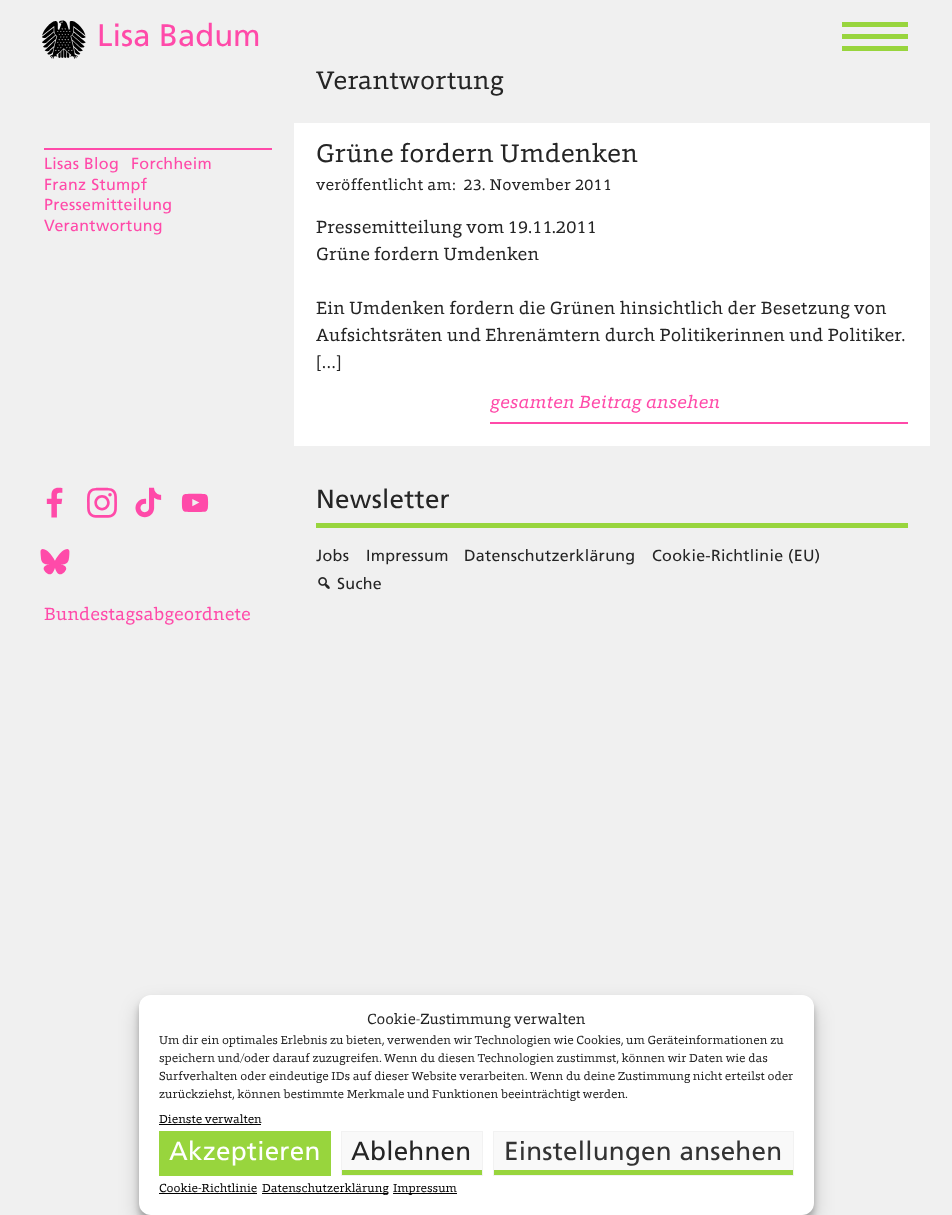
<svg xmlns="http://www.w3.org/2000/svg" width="952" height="1215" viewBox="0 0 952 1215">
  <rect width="100%" height="100%" fill="rgb(240,240,240)"/>
  <image x="42" y="20" width="44" height="39" href="pic1.png"/>
  <text x="97" y="46" font-family="Frutiger" font-size="31" fill="rgb(255,74,169)">Lisa Badum</text>
  <rect x="842" y="22" width="66" height="5" fill="rgb(152,213,61)"/>
  <rect x="842" y="34" width="66" height="5" fill="rgb(152,213,61)"/>
  <rect x="842" y="46" width="66" height="5" fill="rgb(152,213,61)"/>
  <text x="316" y="89" font-family="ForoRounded" font-size="26" letter-spacing="0.25" fill="rgb(37,37,37)">Verantwortung</text>
  <rect x="44" y="148" width="228" height="2" fill="rgb(255,74,169)"/>
  <g font-family="Frutiger" font-size="16" letter-spacing="0.3" fill="rgb(255,74,169)">
    <text x="44" y="169">Lisas Blog</text>
    <text x="131" y="169">Forchheim</text>
    <text>
      <tspan x="44" y="190">Franz Stumpf</tspan>
      <tspan x="44" y="210">Pressemitteilung</tspan>
      <tspan x="44" y="231">Verantwortung</tspan>
    </text>
  </g>
  <rect x="294" y="123" width="636" height="323" fill="rgb(255,255,255)"/>
  <text x="316" y="162" font-family="ForoRounded" font-size="26" letter-spacing="0.25" fill="rgb(37,37,37)">Grüne fordern Umdenken</text>
  <text x="316" y="190" font-family="ForoRounded" font-size="16" letter-spacing="0.3" fill="rgb(37,37,37)" xml:space="preserve">veröffentlicht am:  23. November 2011</text>
  <g font-family="ForoRounded" font-size="18" letter-spacing="0.18" fill="rgb(37,37,37)">
    <text>
      <tspan x="316" y="233">Pressemitteilung vom 19.11.2011</tspan>
      <tspan x="316" y="260">Grüne fordern Umdenken</tspan>
    </text>
    <text>
      <tspan x="316" y="314">Ein Umdenken fordern die Grünen hinsichtlich der Besetzung von</tspan>
      <tspan x="316" y="341">Aufsichtsräten und Ehrenämtern durch Politikerinnen und Politiker.</tspan>
      <tspan x="316" y="368">[…]</tspan>
    </text>
  </g>
  <rect x="490" y="422" width="418" height="2" fill="rgb(255,74,169)"/>
  <text x="490" y="408" font-family="'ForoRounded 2'" font-size="18" letter-spacing="0.18" fill="rgb(255,74,169)">gesamten Beitrag ansehen</text>
  <rect x="316" y="523" width="592" height="5" fill="rgb(152,213,61)"/>
  <text x="316" y="508" font-family="Frutiger" font-size="26" letter-spacing="0.25" fill="rgb(37,37,37)">Newsletter</text>
  <g font-family="Frutiger" font-size="16" letter-spacing="0.3" fill="rgb(37,37,37)">
    <text x="316" y="561">Jobs</text>
    <text x="366" y="561">Impressum</text>
    <text x="464" y="561">Datenschutzerklärung</text>
    <text x="652" y="561">Cookie-Richtlinie (EU)</text>
  </g>
  <image x="318" y="577" width="12" height="12" href="pic2.png"/>
  <text x="337" y="589" font-family="Frutiger" font-size="16" letter-spacing="0.3" fill="rgb(37,37,37)">Suche</text>
  <image x="46" y="487" width="17" height="31" href="pic3.png"/>
  <image x="87" y="487" width="30" height="31" href="pic4.png"/>
  <image x="135" y="487" width="27" height="31" href="pic5.png"/>
  <image x="181" y="493" width="28" height="19" href="pic6.png"/>
  <image x="40" y="549" width="30" height="26" href="pic7.png"/>
  <text x="44" y="620" font-family="ForoRounded" font-size="18" letter-spacing="0.18" fill="rgb(255,74,169)">Bundestagsabgeordnete</text>
  <rect x="139" y="1001" width="675" height="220" rx="12" fill="rgba(0,0,0,0.23)" filter="blur(3px)"/>
  <rect x="139" y="1005" width="675" height="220" rx="12" fill="rgba(0,0,0,0.19)" filter="blur(10px)"/>
  <rect x="139" y="995" width="675" height="220" rx="12" fill="rgb(255,255,255)"/>
  <text x="367" y="1024" font-family="ForoRounded" font-size="15" fill="rgb(37,37,37)">Cookie-Zustimmung verwalten</text>
  <g font-family="ForoRounded" font-size="12" fill="rgb(37,37,37)">
    <text>
      <tspan x="159" y="1044">Um dir ein optimales Erlebnis zu bieten, verwenden wir Technologien wie Cookies, um Geräteinformationen zu</tspan>
      <tspan x="159" y="1062">speichern und/oder darauf zuzugreifen. Wenn du diesen Technologien zustimmst, können wir Daten wie das</tspan>
      <tspan x="159" y="1080">Surfverhalten oder eindeutige IDs auf dieser Website verarbeiten. Wenn du deine Zustimmung nicht erteilst oder</tspan>
      <tspan x="159" y="1098">zurückziehst, können bestimmte Merkmale und Funktionen beeinträchtigt werden.</tspan>
    </text>
  </g>
  <text x="159" y="1123" font-family="ForoRounded" font-size="12" fill="rgb(0,0,0)">Dienste verwalten</text>
  <rect x="159" y="1124" width="102" height="1" fill="rgb(0,0,0)"/>
  <rect x="159" y="1131" width="172" height="45" fill="rgb(152,213,61)"/>
  <text x="169" y="1160" font-family="Frutiger" font-size="26" letter-spacing="0.25" fill="rgb(255,255,255)">Akzeptieren</text>
  <rect x="342" y="1132" width="140" height="38" fill="rgb(249,249,249)"/>
  <rect x="342" y="1170" width="140" height="5" fill="rgb(152,213,61)"/>
  <rect x="341.5" y="1131.5" width="141" height="44" fill="none" stroke="rgb(242,242,242)"/>
  <text x="351" y="1160" font-family="Frutiger" font-size="26" letter-spacing="0.25" fill="rgb(37,37,37)">Ablehnen</text>
  <rect x="494" y="1132" width="299" height="38" fill="rgb(249,249,249)"/>
  <rect x="494" y="1170" width="299" height="5" fill="rgb(152,213,61)"/>
  <rect x="493.5" y="1131.5" width="300" height="44" fill="none" stroke="rgb(242,242,242)"/>
  <text x="504" y="1160" font-family="Frutiger" font-size="26" letter-spacing="0.25" fill="rgb(51,51,51)">Einstellungen ansehen</text>
  <text x="159" y="1192" font-family="ForoRounded" font-size="12" fill="rgb(0,0,0)">Cookie-Richtlinie</text>
  <rect x="159" y="1193" width="98" height="1" fill="rgb(0,0,0)"/>
  <rect x="262" y="1193" width="126" height="1" fill="rgb(0,0,0)"/>
  <text x="262" y="1192" font-family="ForoRounded" font-size="12" fill="rgb(0,0,0)">Datenschutzerklärung</text>
  <rect x="393" y="1193" width="64" height="1" fill="rgb(0,0,0)"/>
  <text x="393" y="1192" font-family="ForoRounded" font-size="12" fill="rgb(0,0,0)">Impressum</text>
</svg>
